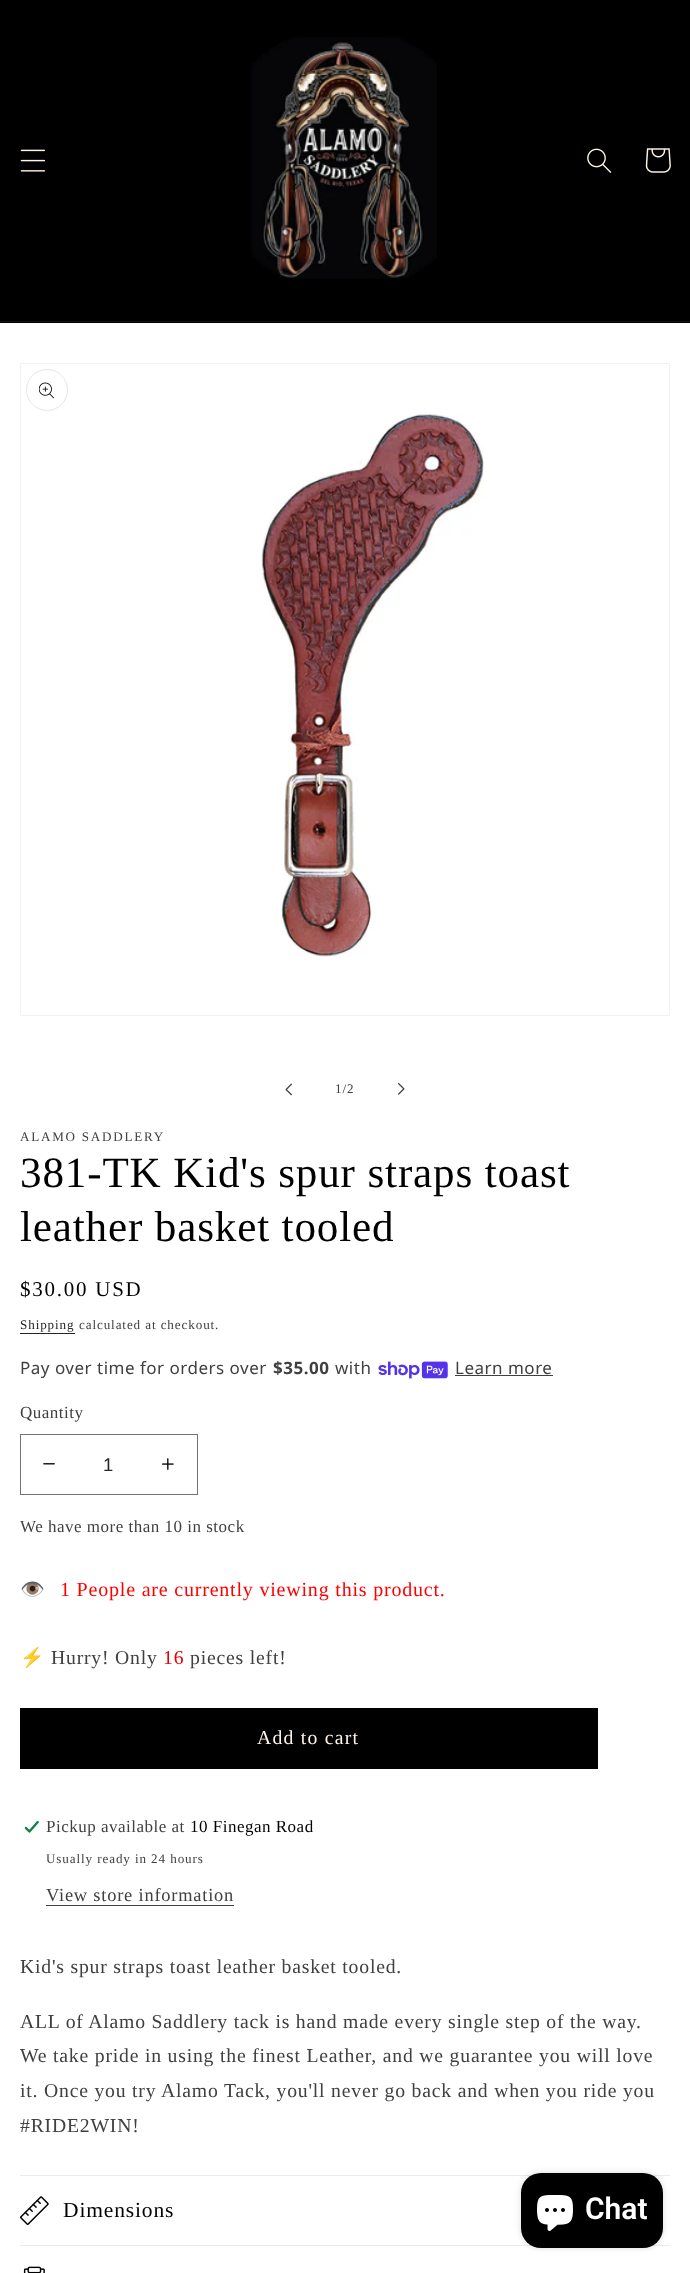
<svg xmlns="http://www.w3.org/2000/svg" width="690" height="2273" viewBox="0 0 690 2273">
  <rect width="100%" height="100%" fill="rgb(255,255,255)"/>
  <rect x="0" y="0" width="690" height="323" fill="rgb(0,0,0)"/>
  <rect x="0" y="321" width="690" height="1" fill="rgb(20,20,19)"/>
  <image x="20" y="149" width="26" height="23" href="pic1.png"/>
  <image x="250" y="37" width="187" height="244" href="pic2.png"/>
  <image x="587" y="148" width="25" height="25" href="pic3.png"/>
  <image x="645" y="148" width="26" height="25" href="pic4.png"/>
  <rect x="20.5" y="363.5" width="649" height="652" fill="none" stroke="rgb(242,242,242)"/>
  <image x="261" y="414" width="227" height="543" href="pic5.png"/>
  <circle cx="47" cy="390" r="20.5" fill="none" stroke="rgb(230,230,230)"/>
  <image x="39" y="382" width="15" height="17" href="pic6.png"/>
  <image x="285" y="1083" width="7" height="13" href="pic7.png"/>
  <text x="335" y="1093" font-family="Liberation Serif" font-size="13.1" letter-spacing="0.9" fill="rgb(64,64,64)">1/2</text>
  <image x="398" y="1083" width="7" height="12" href="pic8.png"/>
  <text x="20" y="1141" font-family="Liberation Serif" font-size="13.1" letter-spacing="1.75" fill="rgb(64,64,64)">ALAMO SADDLERY</text>
  <g font-family="Liberation Serif" font-size="43.1" letter-spacing="0.85" fill="rgb(0,0,0)">
    <text>
      <tspan x="20" y="1187">381-TK Kid's spur straps toast</tspan>
      <tspan x="20" y="1241">leather basket tooled</tspan>
    </text>
  </g>
  <text x="20" y="1296" font-family="Liberation Serif" font-size="21" letter-spacing="1.75" fill="rgb(0,0,0)">$30.00 USD</text>
  <text x="20" y="1329" font-family="Liberation Serif" font-size="13.1" letter-spacing="0.9" fill="rgb(38,38,38)">Shipping</text>
  <rect x="20" y="1333" width="55" height="1" fill="rgb(38,38,38)"/>
  <text x="79" y="1329" font-family="Liberation Serif" font-size="13.1" letter-spacing="0.9" fill="rgb(64,64,64)">calculated at checkout.</text>
  <text x="20" y="1374" font-family="Noto Sans" font-size="17" letter-spacing="0.5" fill="rgb(64,64,64)">Pay over time for orders over</text>
  <text x="273" y="1374" font-family="Noto Sans" font-size="17" font-weight="bold" letter-spacing="0.5" fill="rgb(64,64,64)">$35.00</text>
  <text x="335" y="1374" font-family="Noto Sans" font-size="17" letter-spacing="0.5" fill="rgb(64,64,64)">with</text>
  <image x="378" y="1361" width="70" height="18" href="pic9.png"/>
  <text x="455" y="1374" font-family="Noto Sans" font-size="17" letter-spacing="0.5" fill="rgb(64,64,64)">Learn more</text>
  <rect x="455" y="1375" width="98" height="1" fill="rgb(64,64,64)"/>
  <text x="20" y="1418" font-family="Liberation Serif" font-size="17" letter-spacing="0.5" fill="rgb(64,64,64)">Quantity</text>
  <image x="43" y="1463" width="12" height="2" href="pic10.png"/>
  <image x="162" y="1458" width="12" height="12" href="pic11.png"/>
  <rect x="20.5" y="1434.5" width="177" height="60" fill="none" stroke="rgb(115,115,115)"/>
  <text x="103" y="1471" font-family="Liberation Sans" font-size="18.4" fill="rgb(38,38,38)">1</text>
  <text x="20" y="1532" font-family="Liberation Serif" font-size="17" letter-spacing="0.5" fill="rgb(64,64,64)">We have more than 10 in stock</text>
  <text x="20" y="1596" font-family="Noto Color Emoji" font-size="20" letter-spacing="0.8" fill="rgb(255,0,0)">👁️</text>
  <text x="60" y="1596" font-family="Liberation Serif" font-size="20" letter-spacing="0.8" fill="rgb(255,0,0)">1 People are currently viewing this product.</text>
  <text x="20" y="1664" font-family="Noto Color Emoji" font-size="19.7" letter-spacing="0.8" fill="rgb(64,64,64)">⚡</text>
  <text x="51" y="1664" font-family="Liberation Serif" font-size="19.7" letter-spacing="0.8" fill="rgb(64,64,64)">Hurry! Only</text>
  <text x="163" y="1664" font-family="Liberation Serif" font-size="19.7" letter-spacing="0.8" fill="rgb(230,0,0)">16</text>
  <text x="190" y="1664" font-family="Liberation Serif" font-size="19.7" letter-spacing="0.8" fill="rgb(64,64,64)">pieces left!</text>
  <rect x="20" y="1708" width="578" height="61" fill="rgb(0,0,0)"/>
  <text x="257" y="1744" font-family="Liberation Serif" font-size="19.7" letter-spacing="1.25" fill="rgb(255,244,233)">Add to cart</text>
  <image x="24" y="1820" width="15" height="14" href="pic12.png"/>
  <text x="46" y="1832" font-family="Liberation Serif" font-size="17" letter-spacing="0.5" fill="rgb(64,64,64)">Pickup available at</text>
  <text x="190" y="1832" font-family="Liberation Serif" font-size="17" letter-spacing="0.5" fill="rgb(0,0,0)">10 Finegan Road</text>
  <text x="46" y="1863" font-family="Liberation Serif" font-size="13.1" letter-spacing="0.9" fill="rgb(64,64,64)">Usually ready in 24 hours</text>
  <text x="46" y="1901" font-family="Liberation Serif" font-size="18.4" letter-spacing="0.8" fill="rgb(64,64,64)">View store information</text>
  <rect x="46" y="1905" width="188" height="1" fill="rgb(64,64,64)"/>
  <g font-family="Liberation Serif" font-size="19.7" letter-spacing="0.8" fill="rgb(64,64,64)">
    <text x="20" y="1973">Kid's spur straps toast leather basket tooled.</text>
    <text>
      <tspan x="20" y="2028">ALL of Alamo Saddlery tack is hand made every single step of the way.</tspan>
      <tspan x="20" y="2062">We take pride in using the finest Leather, and we guarantee you will love</tspan>
      <tspan x="20" y="2097">it. Once you try Alamo Tack, you'll never go back and when you ride you</tspan>
      <tspan x="20" y="2132">#RIDE2WIN!</tspan>
    </text>
  </g>
  <rect x="20" y="2175" width="650" height="1" fill="rgb(235,235,235)"/>
  <rect x="20" y="2245" width="650" height="1" fill="rgb(235,235,235)"/>
  <image x="20" y="2196" width="29" height="29" href="pic13.png"/>
  <text x="63" y="2217" font-family="Liberation Serif" font-size="21.5" letter-spacing="0.85" fill="rgb(0,0,0)">Dimensions</text>
  <image x="23" y="2266" width="22" height="7" href="pic14.png"/>
  <rect x="521" y="2173" width="142" height="75" rx="20" fill="rgba(0,0,0,0.15)" filter="blur(3px)"/>
  <rect x="521" y="2173" width="142" height="75" rx="20" fill="rgb(0,0,0)"/>
  <image x="537" y="2195" width="36" height="36" href="pic15.png"/>
  <text x="585" y="2219" font-family="Roboto" font-size="30" font-weight="600" fill="rgb(255,255,255)">Chat</text>
</svg>
